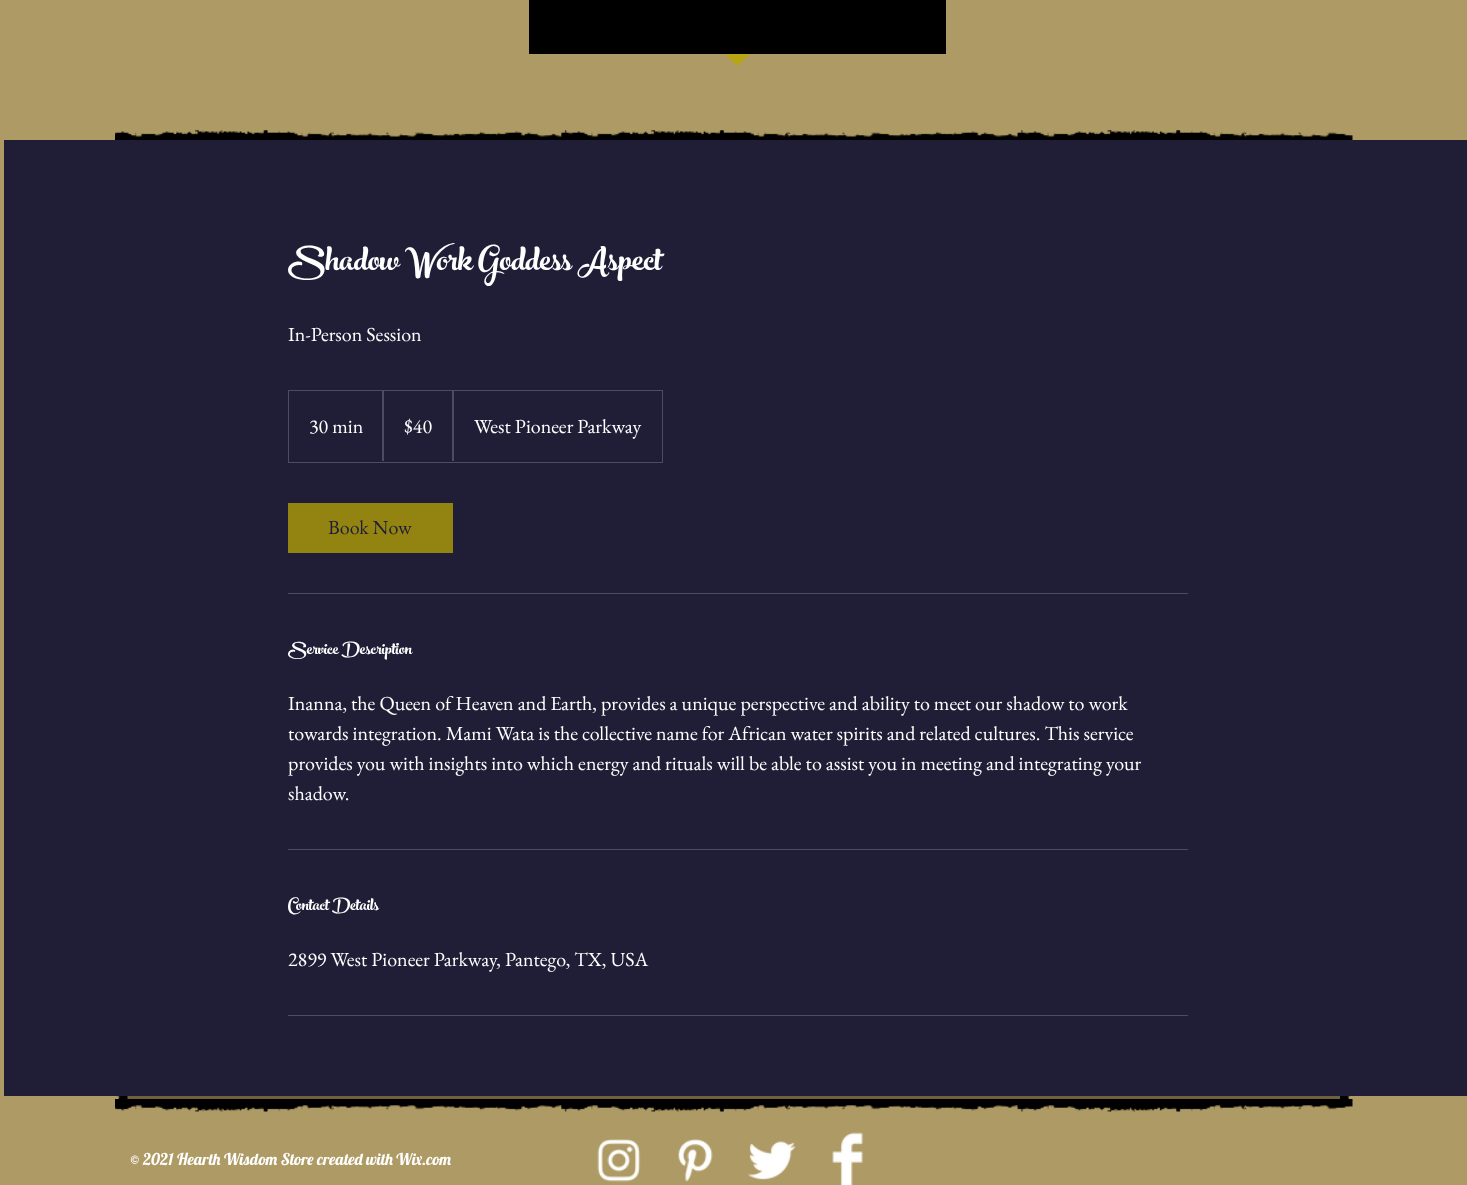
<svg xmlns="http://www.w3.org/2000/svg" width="1467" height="1185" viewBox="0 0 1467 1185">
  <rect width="100%" height="100%" fill="rgb(174,154,100)"/>
  <rect x="529" y="0" width="417" height="54" fill="rgb(0,0,0)"/>
  <path d="M725 54H750L737.5 66Z" fill="rgb(184,165,22)"/>
  <rect x="127" y="1096" width="1213" height="3" fill="rgb(111,97,62)"/>
  <image x="115" y="130" width="1238" height="10" href="pic1.png"/>
  <image x="115" y="1099" width="1238" height="13" href="pic2.png"/>
  <image x="117" y="1096" width="11" height="3" href="pic3.png"/>
  <image x="1340" y="1096" width="10" height="3" href="pic4.png"/>
  <rect x="4" y="140" width="1463" height="956" fill="rgb(32,30,55)"/>
  <text x="288" y="270" font-family="'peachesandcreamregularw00'" font-size="50" fill="rgb(255,255,255)">Shadow Work Goddess Aspect</text>
  <text x="288" y="341" font-family="EB Garamond" font-size="20" fill="rgb(255,255,255)">In-Person Session</text>
  <rect x="288.5" y="390.5" width="374" height="72" fill="none" stroke="rgb(77,75,95)"/>
  <text x="309" y="433" font-family="EB Garamond" font-size="20" fill="rgb(255,255,255)">30 min</text>
  <path d="M382 461V390L384 391V461Z" fill="rgb(77,75,95)"/>
  <text x="404" y="433" font-family="EB Garamond" font-size="20" fill="rgb(255,255,255)">$40</text>
  <path d="M452 461V390L454 391V461Z" fill="rgb(77,75,95)"/>
  <text x="474" y="433" font-family="EB Garamond" font-size="20" fill="rgb(255,255,255)">West Pioneer Parkway</text>
  <rect x="288" y="503" width="165" height="50" fill="rgb(147,132,17)"/>
  <text x="328" y="534" font-family="EB Garamond" font-size="20" fill="rgb(32,30,55)">Book Now</text>
  <rect x="288" y="593" width="900" height="1" fill="rgb(77,75,95)"/>
  <text x="288" y="654" font-family="'peachesandcreamregularw00'" font-size="25" fill="rgb(255,255,255)">Service Description</text>
  <g font-family="EB Garamond" font-size="20" fill="rgb(255,255,255)">
    <text>
      <tspan x="288" y="710">Inanna, the Queen of Heaven and Earth, provides a unique perspective and ability to meet our shadow to work</tspan>
      <tspan x="288" y="740">towards integration. Mami Wata is the collective name for African water spirits and related cultures. This service</tspan>
      <tspan x="288" y="770">provides you with insights into which energy and rituals will be able to assist you in meeting and integrating your</tspan>
      <tspan x="288" y="800">shadow.</tspan>
    </text>
  </g>
  <rect x="288" y="849" width="900" height="1" fill="rgb(77,75,95)"/>
  <text x="288" y="910" font-family="'peachesandcreamregularw00'" font-size="25" fill="rgb(255,255,255)">Contact Details</text>
  <text x="288" y="966" font-family="EB Garamond" font-size="20" fill="rgb(255,255,255)">2899 West Pioneer Parkway, Pantego, TX, USA</text>
  <rect x="288" y="1015" width="900" height="1" fill="rgb(77,75,95)"/>
  <text x="130" y="1165" font-family="Lobster" font-size="16.25" fill="rgb(255,255,255)">© 2021 Hearth Wisdom Store created with Wix.com</text>
  <image x="597" y="1139" width="44" height="43" href="pic5.png"/>
  <image x="677" y="1139" width="36" height="43" href="pic6.png"/>
  <image x="747" y="1141" width="49" height="39" href="pic7.png"/>
  <image x="832" y="1132" width="31" height="53" href="pic8.png"/>
</svg>
